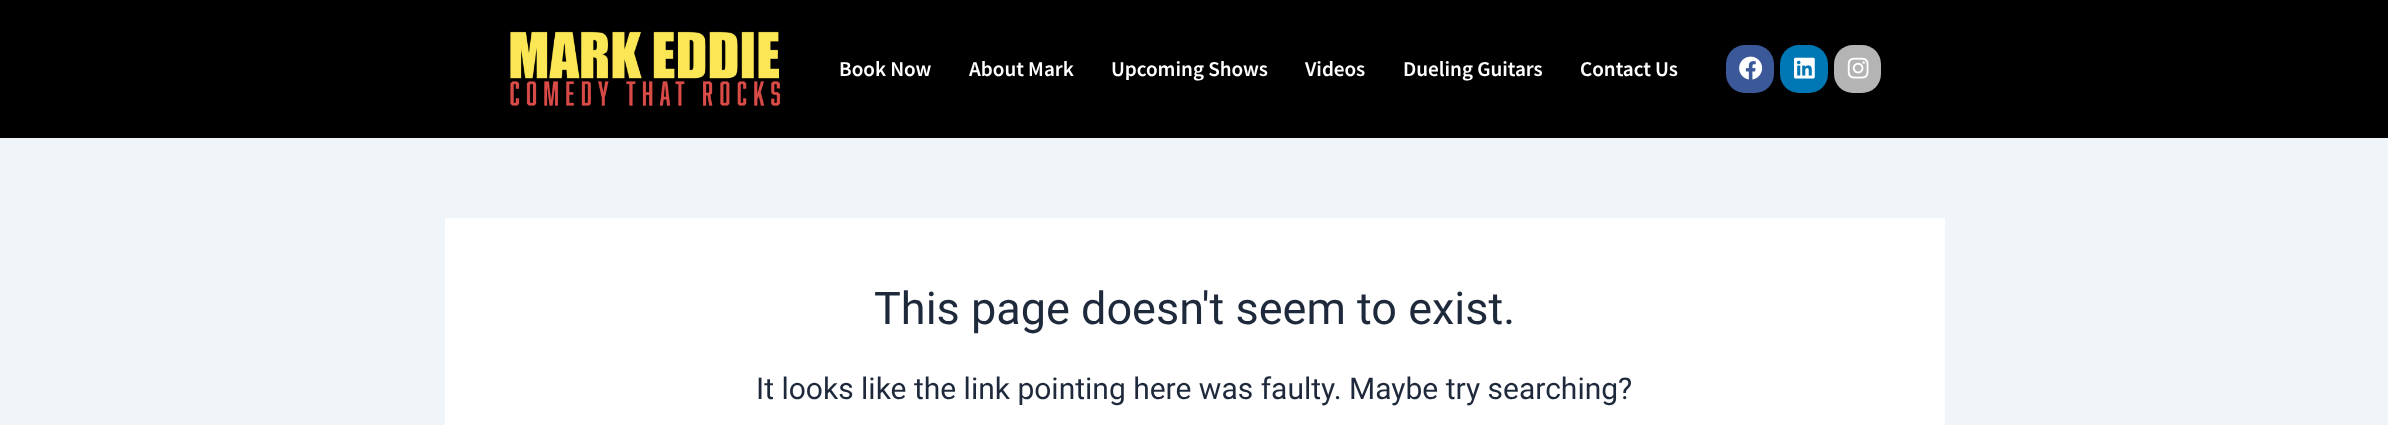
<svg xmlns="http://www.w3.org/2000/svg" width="2388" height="425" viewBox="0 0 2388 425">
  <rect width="100%" height="100%" fill="rgb(240,245,250)"/>
  <rect x="0" y="0" width="2388" height="138" fill="rgb(0,0,0)"/>
  <image x="510" y="31" width="271" height="75" href="pic1.png"/>
  <g font-family="Noto Sans KR" font-size="18.75" font-weight="600" fill="rgb(255,255,255)">
    <text x="839" y="76">Book Now</text>
    <text x="969" y="76">About Mark</text>
    <text x="1111" y="76">Upcoming Shows</text>
    <text x="1305" y="76">Videos</text>
    <text x="1403" y="76">Dueling Guitars</text>
    <text x="1580" y="76">Contact Us</text>
  </g>
  <rect x="1726" y="45" width="48" height="48" rx="19" fill="rgb(59,89,152)"/>
  <image x="1739" y="56" width="24" height="24" href="pic2.png"/>
  <rect x="1780" y="45" width="48" height="48" rx="19" fill="rgb(0,119,181)"/>
  <image x="1794" y="57" width="21" height="22" href="pic3.png"/>
  <rect x="1834" y="45" width="47" height="48" rx="19" fill="rgb(180,180,180)"/>
  <image x="1847" y="57" width="22" height="22" href="pic4.png"/>
  <rect x="445" y="218" width="1500" height="207" fill="rgb(255,255,255)"/>
  <text x="874" y="324" font-family="Roboto" font-size="45" fill="rgb(30,41,59)">This page doesn't seem to exist.</text>
  <text x="756" y="399" font-family="Roboto" font-size="30" fill="rgb(30,41,59)">It looks like the link pointing here was faulty. Maybe try searching?</text>
</svg>
